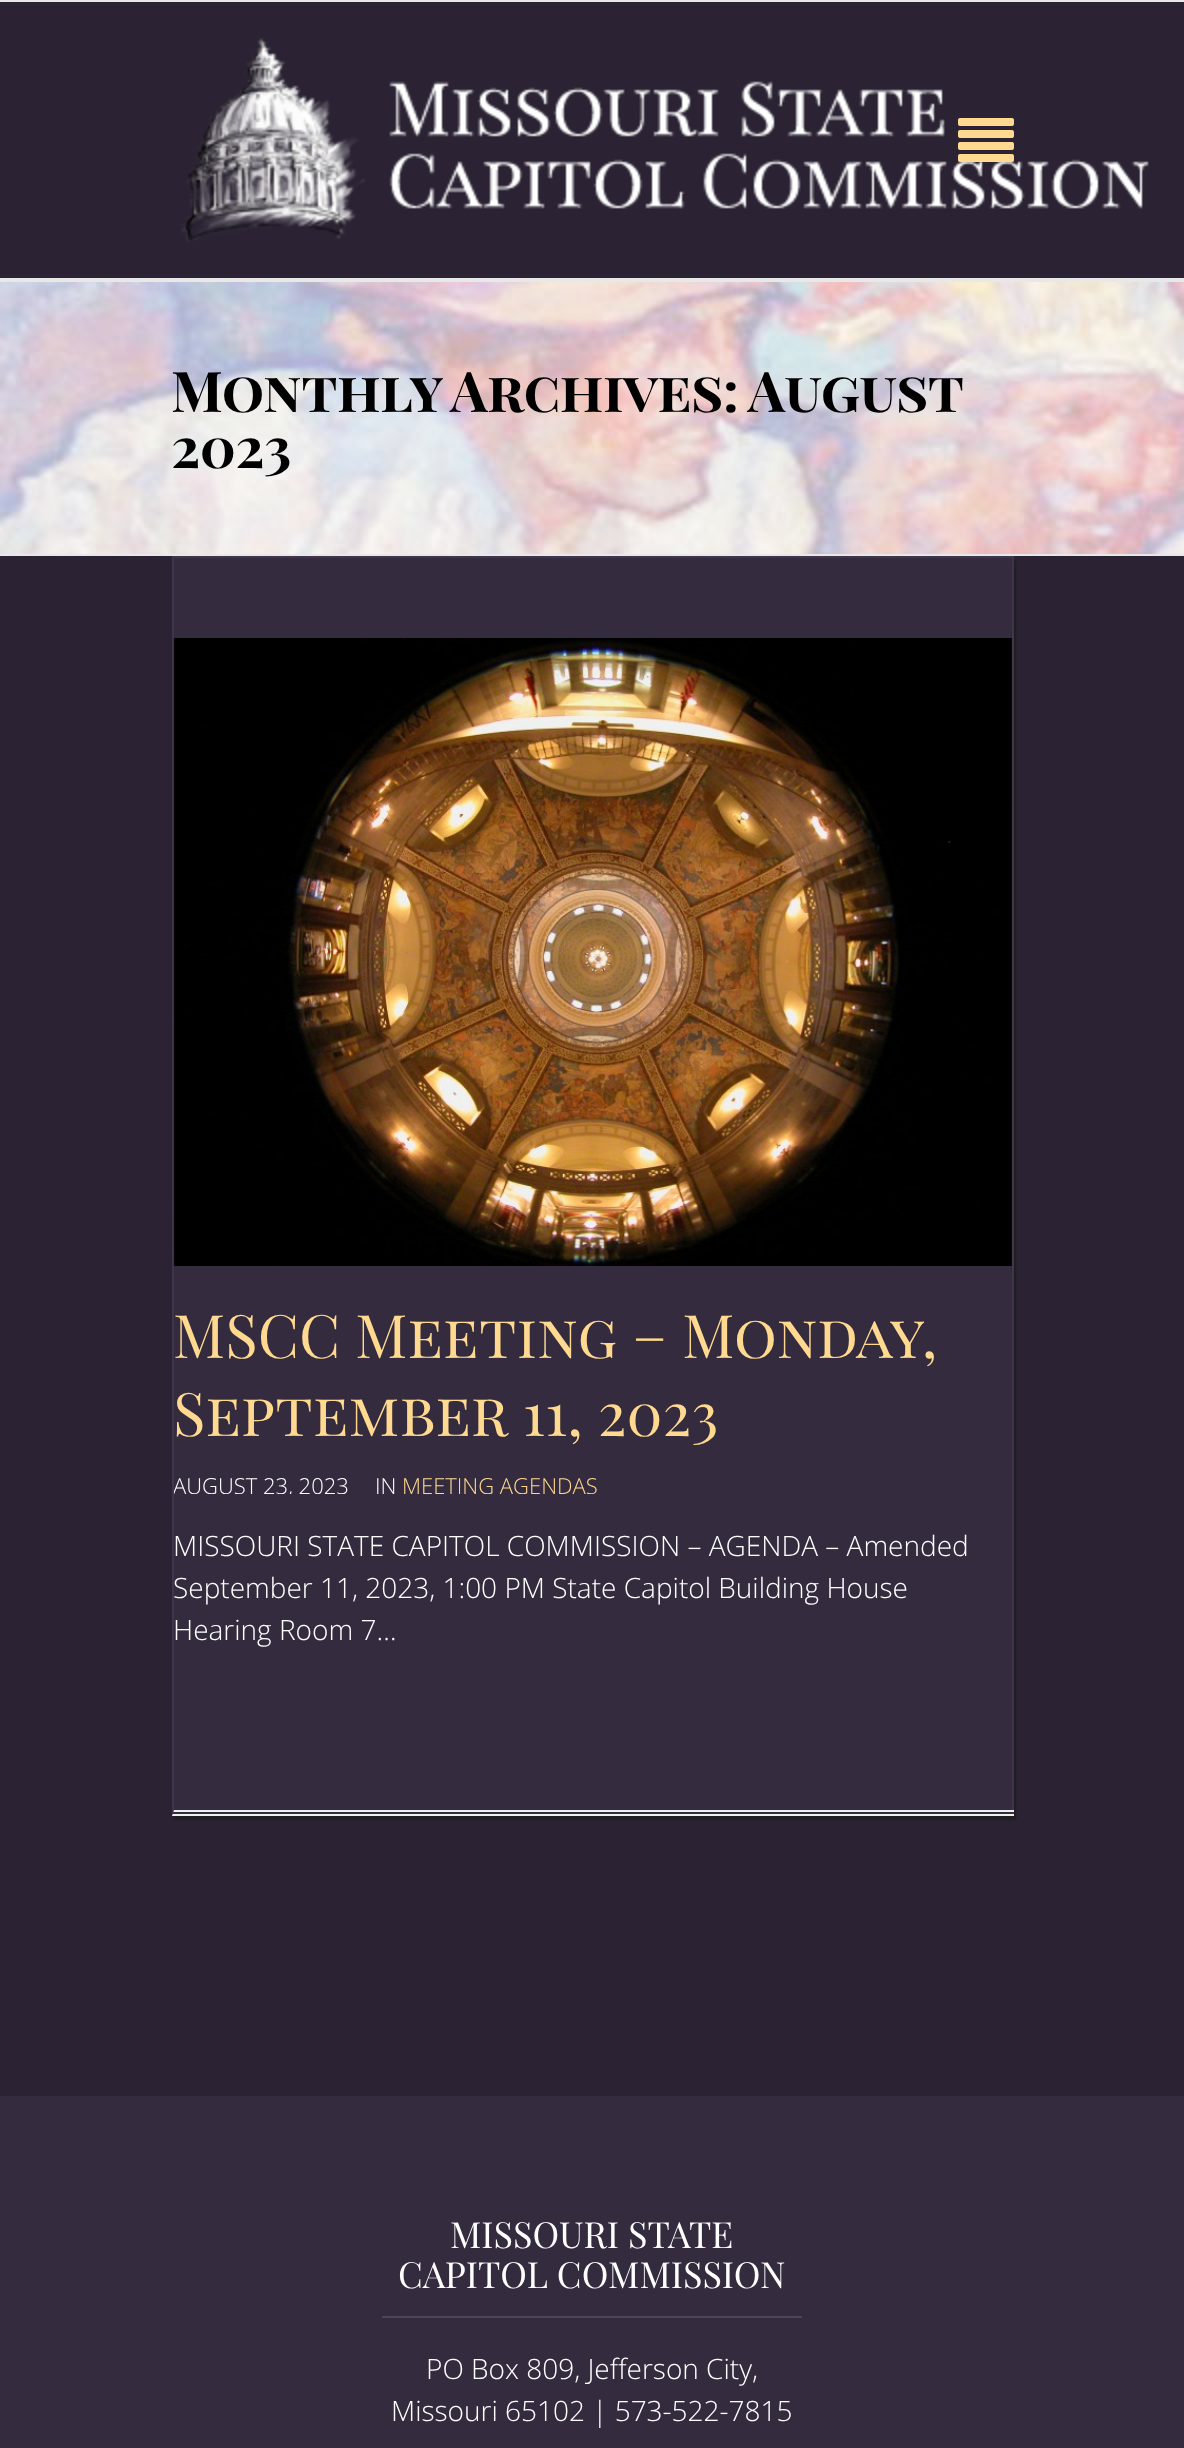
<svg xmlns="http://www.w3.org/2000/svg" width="1184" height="2448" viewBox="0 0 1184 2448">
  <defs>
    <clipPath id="clip1"><rect x="174" y="1472" width="838" height="22"/></clipPath>
  </defs>
  <rect width="100%" height="100%" fill="rgb(43,35,51)"/>
  <rect x="0" y="0" width="1184" height="2" fill="rgb(232,232,232)"/>
  <rect x="0" y="278" width="1184" height="4" fill="rgb(232,232,232)"/>
  <image x="180" y="38" width="969" height="204" href="pic1.png"/>
  <image x="958" y="118" width="56" height="44" href="pic2.png"/>
  <image x="0" y="282" width="1184" height="272" href="pic3.png"/>
  <rect x="0" y="554" width="1184" height="2" fill="rgb(232,232,232)"/>
  <g font-family="Playfair Display SC" font-size="56" font-weight="bold" letter-spacing="-0.6" fill="rgb(0,0,0)">
    <text>
      <tspan x="171" y="412" word-spacing="-1">Monthly Archives: August</tspan>
      <tspan x="171" y="468">2023</tspan>
    </text>
  </g>
  <rect x="174" y="560" width="842" height="1260" fill="rgb(31,29,32)" filter="blur(1px)"/>
  <rect x="172" y="558" width="842" height="1256" fill="rgb(52,43,62)"/>
  <rect x="172" y="556" width="842" height="2" fill="rgb(65,53,77)"/>
  <path d="M1014 556V1816L1012 1810V558Z" fill="rgb(65,53,77)"/>
  <rect x="172" y="1810" width="842" height="2" fill="rgb(236,240,241)"/>
  <rect x="172" y="1814" width="842" height="2" fill="rgb(236,240,241)"/>
  <path d="M172 1816V556L174 558V1810Z" fill="rgb(65,53,77)"/>
  <image x="173" y="638" width="839" height="628" href="pic4.png"/>
  <g font-family="Playfair Display SC" font-size="60" fill="rgb(255,217,143)">
    <text>
      <tspan x="173" y="1358">MSCC Meeting – Monday,</tspan>
      <tspan x="173" y="1436">September 11, 2023</tspan>
    </text>
  </g>
  <g clip-path="url(#clip1)">
    <text x="173" y="1494" font-family="Open Sans" font-size="22" font-weight="300" fill="rgb(255,255,255)">AUGUST 23, 2023</text>
  </g>
  <text x="375" y="1494" font-family="Open Sans" font-size="22" font-weight="300" fill="rgb(255,255,255)">IN</text>
  <g clip-path="url(#clip1)">
    <text x="402" y="1494" font-family="Open Sans" font-size="22" font-weight="300" fill="rgb(255,217,143)">MEETING AGENDAS</text>
  </g>
  <g font-family="Open Sans" font-size="28" font-weight="300" fill="rgb(255,255,255)">
    <text>
      <tspan x="173" y="1556">MISSOURI STATE CAPITOL COMMISSION – AGENDA – Amended</tspan>
      <tspan x="173" y="1598">September 11, 2023, 1:00 PM State Capitol Building House</tspan>
      <tspan x="173" y="1640">Hearing Room 7…</tspan>
    </text>
  </g>
  <rect x="0" y="2096" width="1184" height="352" fill="rgb(52,43,62)"/>
  <rect x="382" y="2316" width="420" height="2" fill="rgb(78,70,88)"/>
  <g font-family="Playfair Display SC" font-size="36" fill="rgb(255,255,255)">
    <text x="450" y="2248">MISSOURI STATE</text>
    <text x="398" y="2288">CAPITOL COMMISSION</text>
  </g>
  <g font-family="Open Sans" font-size="28" font-weight="300" fill="rgb(255,255,255)">
    <text x="426" y="2379">PO Box 809, Jefferson City,</text>
    <text x="391" y="2421">Missouri 65102 | 573-522-7815</text>
  </g>
</svg>
